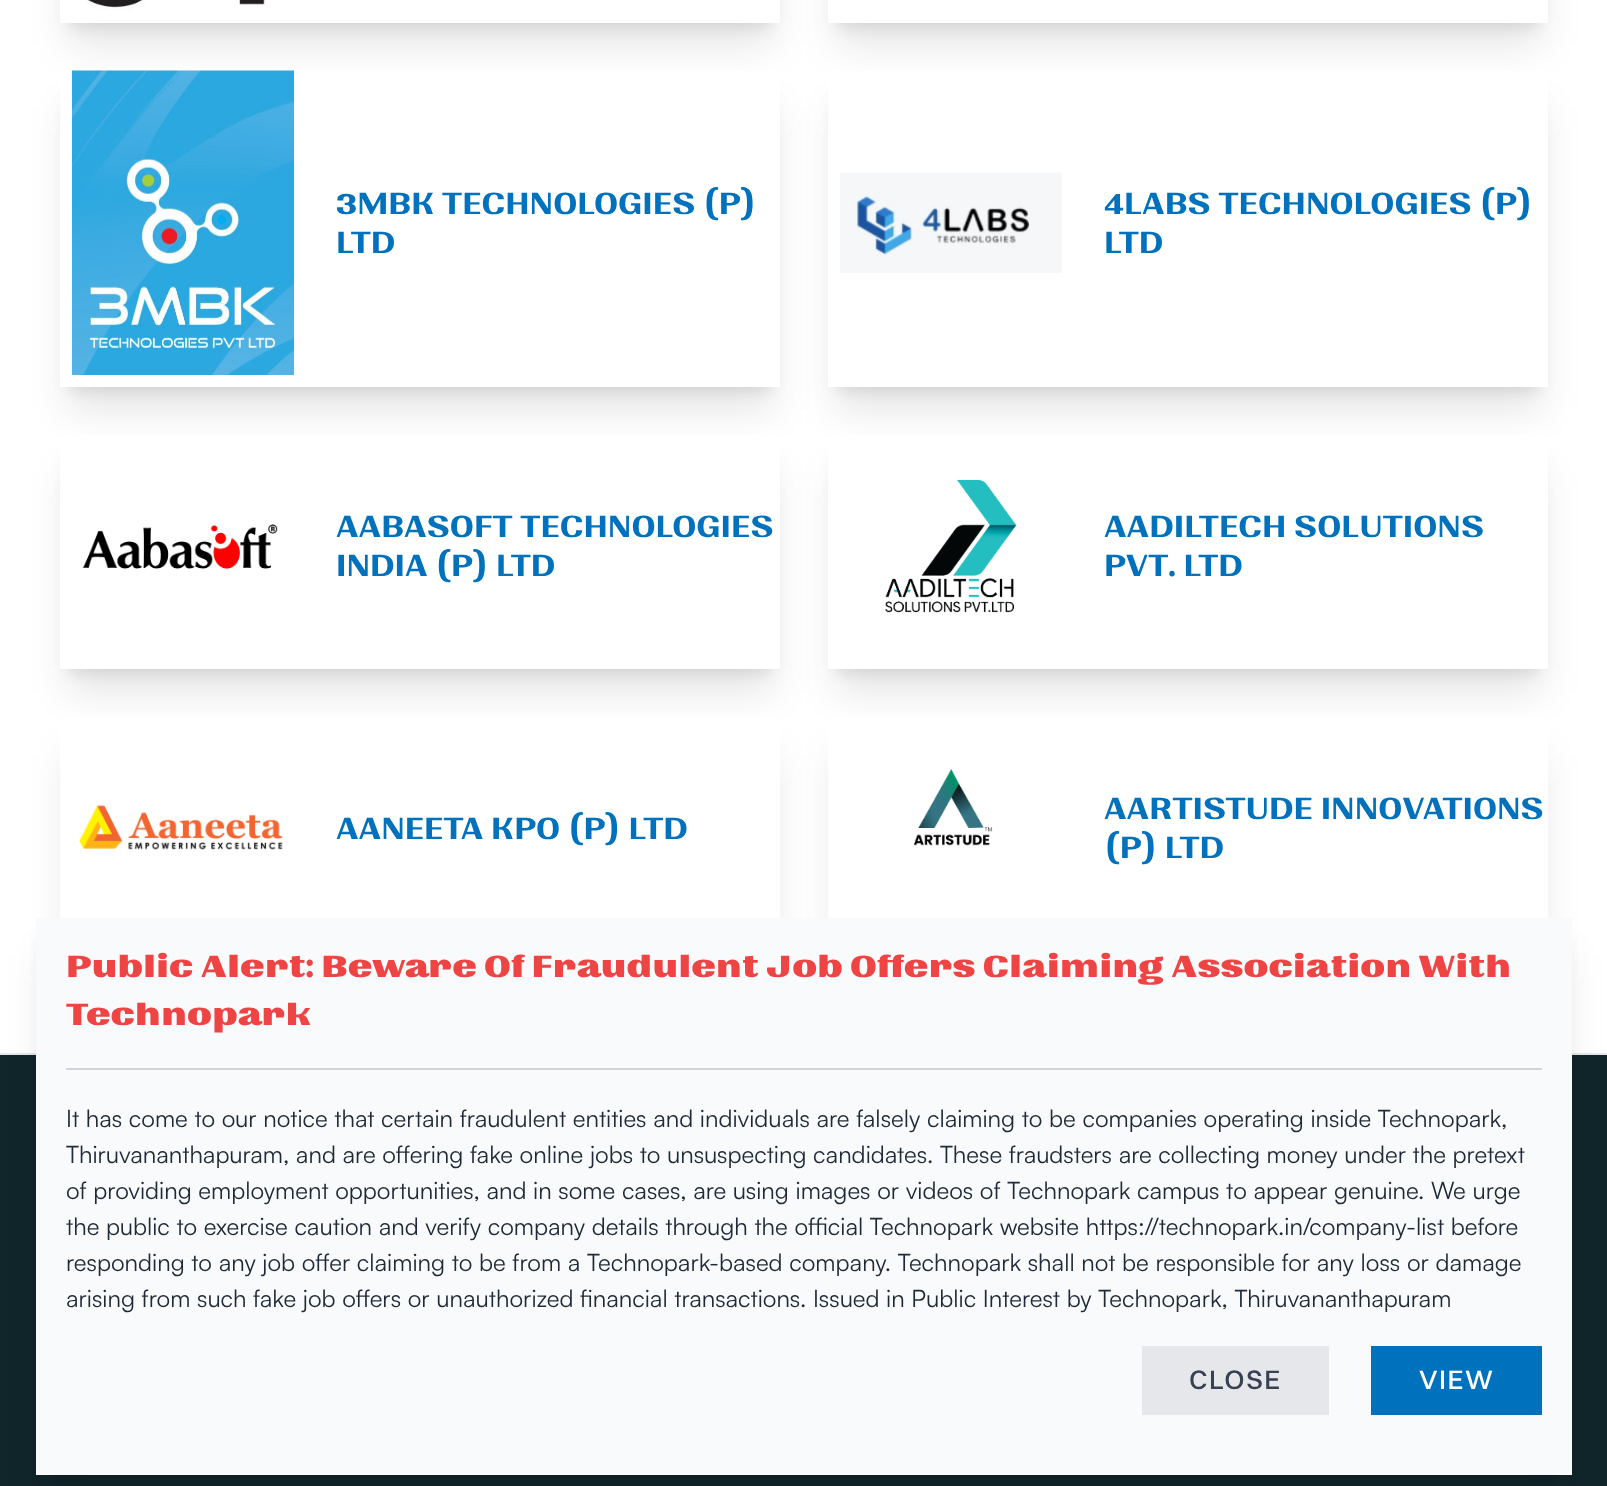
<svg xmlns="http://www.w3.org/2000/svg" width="1607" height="1486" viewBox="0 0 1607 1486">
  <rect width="100%" height="100%" fill="rgb(255,255,255)"/>
  <rect x="69" y="-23" width="702" height="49" fill="rgba(0,0,0,0.1)" filter="blur(7.5px)"/>
  <rect x="68" y="-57" width="705" height="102" fill="rgba(0,0,0,0.1)" filter="blur(19px)"/>
  <rect x="60" y="0" width="720" height="23" fill="rgb(255,255,255)"/>
  <image x="85" y="0" width="182" height="10" href="pic1.png"/>
  <rect x="837" y="-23" width="702" height="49" fill="rgba(0,0,0,0.1)" filter="blur(7.5px)"/>
  <rect x="836" y="-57" width="705" height="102" fill="rgba(0,0,0,0.1)" filter="blur(19px)"/>
  <rect x="828" y="0" width="720" height="23" fill="rgb(255,255,255)"/>
  <rect x="69" y="92" width="702" height="298" fill="rgba(0,0,0,0.1)" filter="blur(7.5px)"/>
  <rect x="68" y="108" width="705" height="302" fill="rgba(0,0,0,0.1)" filter="blur(19px)"/>
  <rect x="60" y="71" width="720" height="316" fill="rgb(255,255,255)"/>
  <image x="72" y="70" width="222" height="305" href="pic2.png"/>
  <g font-family="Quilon" font-size="36" font-weight="500" fill="rgb(0,113,188)">
    <text>
      <tspan x="336" y="214">3MBK TECHNOLOGIES (P)</tspan>
      <tspan x="336" y="253">LTD</tspan>
    </text>
  </g>
  <rect x="837" y="92" width="702" height="298" fill="rgba(0,0,0,0.1)" filter="blur(7.5px)"/>
  <rect x="836" y="108" width="705" height="302" fill="rgba(0,0,0,0.1)" filter="blur(19px)"/>
  <rect x="828" y="71" width="720" height="316" fill="rgb(255,255,255)"/>
  <image x="840" y="172" width="222" height="101" href="pic3.png"/>
  <g font-family="Quilon" font-size="36" font-weight="500" fill="rgb(0,113,188)">
    <text>
      <tspan x="1104" y="214">4LABS TECHNOLOGIES (P)</tspan>
      <tspan x="1104" y="253">LTD</tspan>
    </text>
  </g>
  <rect x="69" y="456" width="702" height="216" fill="rgba(0,0,0,0.1)" filter="blur(7.5px)"/>
  <rect x="68" y="473" width="705" height="219" fill="rgba(0,0,0,0.1)" filter="blur(19px)"/>
  <rect x="60" y="435" width="720" height="234" fill="rgb(255,255,255)"/>
  <image x="82" y="524" width="196" height="45" href="pic4.png"/>
  <g font-family="Quilon" font-size="36" font-weight="500" fill="rgb(0,113,188)">
    <text>
      <tspan x="336" y="537">AABASOFT TECHNOLOGIES</tspan>
      <tspan x="336" y="576">INDIA (P) LTD</tspan>
    </text>
  </g>
  <rect x="837" y="456" width="702" height="216" fill="rgba(0,0,0,0.1)" filter="blur(7.5px)"/>
  <rect x="836" y="473" width="705" height="219" fill="rgba(0,0,0,0.1)" filter="blur(19px)"/>
  <rect x="828" y="435" width="720" height="234" fill="rgb(255,255,255)"/>
  <image x="885" y="479" width="132" height="134" href="pic5.png"/>
  <g font-family="Quilon" font-size="36" font-weight="500" fill="rgb(0,113,188)">
    <text>
      <tspan x="1104" y="537">AADILTECH SOLUTIONS</tspan>
      <tspan x="1104" y="576">PVT. LTD</tspan>
    </text>
  </g>
  <rect x="68" y="755" width="705" height="219" fill="rgba(0,0,0,0.1)" filter="blur(19px)"/>
  <rect x="60" y="717" width="720" height="201" fill="rgb(255,255,255)"/>
  <image x="78" y="805" width="205" height="45" href="pic6.png"/>
  <text x="336" y="839" font-family="Quilon" font-size="36" font-weight="500" fill="rgb(0,113,188)">AANEETA KPO (P) LTD</text>
  <rect x="836" y="755" width="705" height="219" fill="rgba(0,0,0,0.1)" filter="blur(19px)"/>
  <rect x="828" y="717" width="720" height="201" fill="rgb(255,255,255)"/>
  <image x="913" y="769" width="80" height="77" href="pic7.png"/>
  <g font-family="Quilon" font-size="36" font-weight="500" fill="rgb(0,113,188)">
    <text>
      <tspan x="1104" y="819">AARTISTUDE INNOVATIONS</tspan>
      <tspan x="1104" y="858">(P) LTD</tspan>
    </text>
  </g>
  <rect x="0" y="1055" width="1607" height="431" fill="rgb(17,38,43)"/>
  <rect x="0" y="1053" width="1607" height="2" fill="rgb(229,231,235)"/>
  <rect x="45" y="939" width="1518" height="539" fill="rgba(0,0,0,0.1)" filter="blur(7.5px)"/>
  <rect x="44" y="956" width="1521" height="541" fill="rgba(0,0,0,0.1)" filter="blur(19px)"/>
  <rect x="36" y="918" width="1536" height="557" fill="rgb(249,250,251)"/>
  <g font-family="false" font-size="36" font-weight="bold" fill="rgb(239,68,68)">
    <text>
      <tspan x="66" y="977">Public Alert: Beware Of Fraudulent Job Offers Claiming Association With</tspan>
      <tspan x="66" y="1025">Technopark</tspan>
    </text>
  </g>
  <rect x="66" y="1068" width="1476" height="2" fill="rgb(209,213,219)"/>
  <g font-family="false" font-size="24" fill="rgb(31,41,55)">
    <text>
      <tspan x="66" y="1127">It has come to our notice that certain fraudulent entities and individuals are falsely claiming to be companies operating inside Technopark,</tspan>
      <tspan x="66" y="1163">Thiruvananthapuram, and are offering fake online jobs to unsuspecting candidates. These fraudsters are collecting money under the pretext</tspan>
      <tspan x="66" y="1199">of providing employment opportunities, and in some cases, are using images or videos of Technopark campus to appear genuine. We urge</tspan>
      <tspan x="66" y="1235">the public to exercise caution and verify company details through the official Technopark website https://technopark.in/company-list before</tspan>
      <tspan x="66" y="1271">responding to any job offer claiming to be from a Technopark-based company. Technopark shall not be responsible for any loss or damage</tspan>
      <tspan x="66" y="1307">arising from such fake job offers or unauthorized financial transactions. Issued in Public Interest by Technopark, Thiruvananthapuram</tspan>
    </text>
  </g>
  <rect x="1142" y="1346" width="187" height="69" fill="rgb(229,231,235)"/>
  <text x="1189" y="1389" font-family="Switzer" font-size="27" font-weight="500" letter-spacing="1.5" fill="rgb(55,65,81)">CLOSE</text>
  <rect x="1371" y="1346" width="171" height="69" fill="rgb(0,113,188)"/>
  <text x="1419" y="1389" font-family="Switzer" font-size="27" font-weight="500" letter-spacing="1.5" fill="rgb(255,255,255)">VIEW</text>
</svg>
